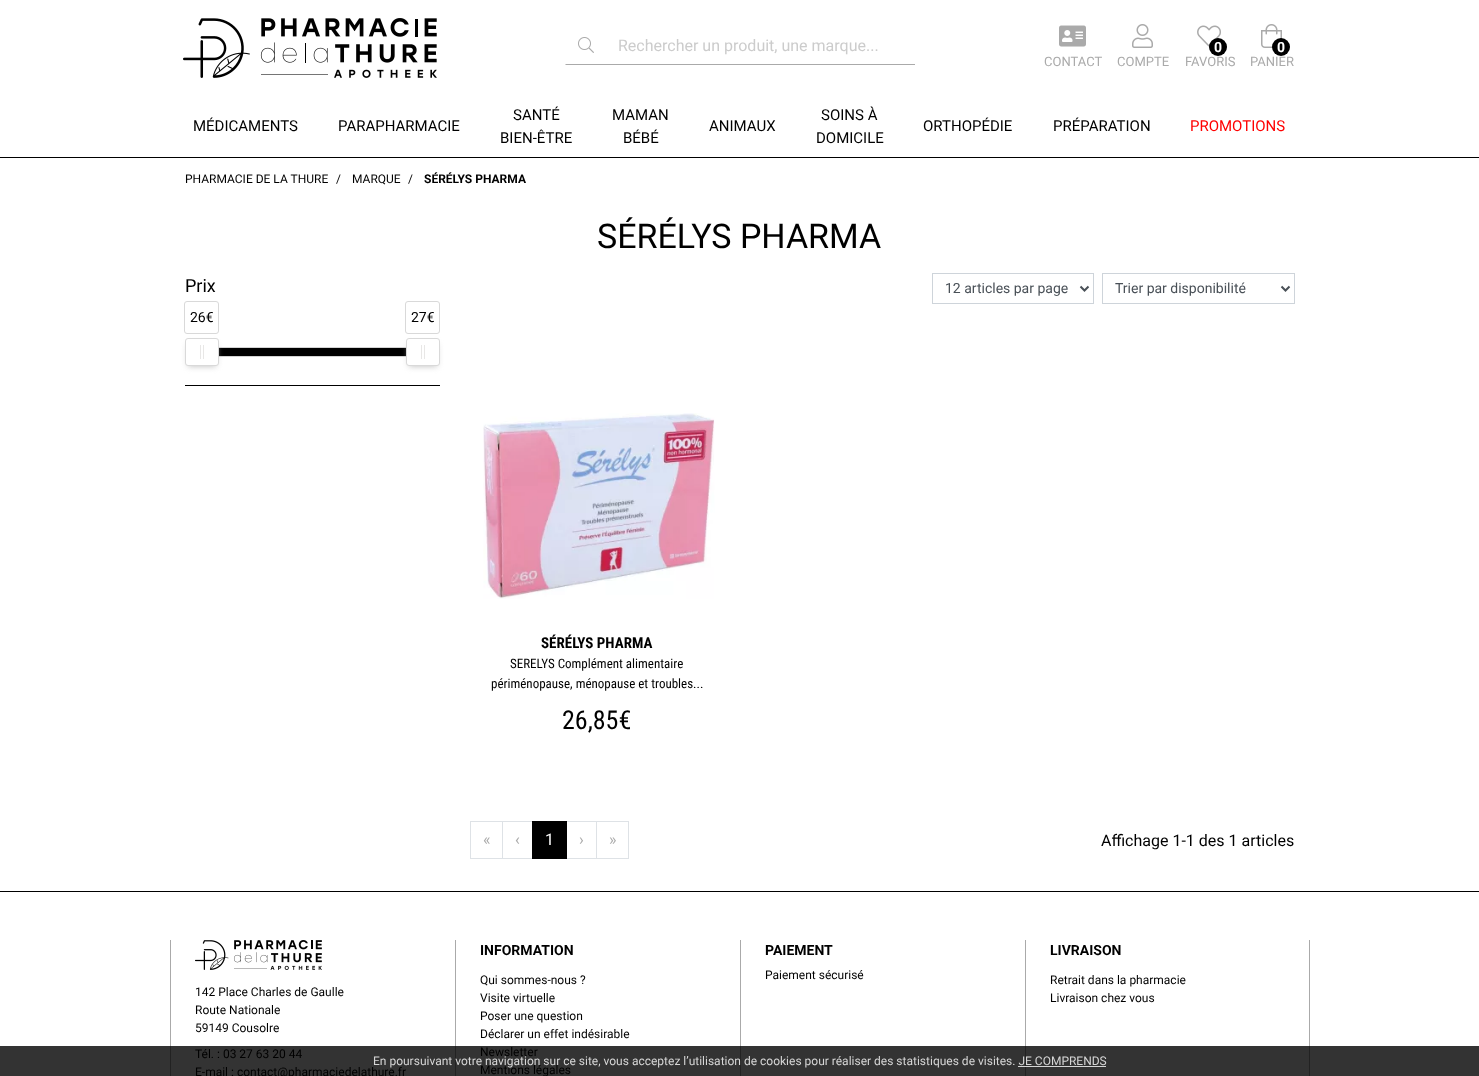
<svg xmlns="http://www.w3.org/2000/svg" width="1479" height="1076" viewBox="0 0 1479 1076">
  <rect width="100%" height="100%" fill="rgb(255,255,255)"/>
  <rect x="0" y="1046" width="1479" height="30" fill="rgb(51,51,51)"/>
  <rect x="1018" y="1066" width="88" height="1" fill="rgb(214,214,214)"/>
  <rect x="0" y="157" width="1479" height="1" fill="rgb(0,0,0)"/>
  <image x="183" y="18" width="254" height="60" href="pic1.png"/>
  <rect x="606" y="64" width="309" height="1" fill="rgb(170,170,170)"/>
  <path d="M607 65H565L566 64H606Z" fill="rgb(170,170,170)"/>
  <image x="578" y="37" width="16" height="16" href="pic2.png"/>
  <text x="618" y="51" font-family="Roboto" font-size="16" fill="rgb(204,204,204)">Rechercher un produit, une marque...</text>
  <image x="1059" y="25" width="27" height="22" href="pic3.png"/>
  <text x="1044" y="66" font-family="Roboto" font-size="13" fill="rgb(170,170,170)">CONTACT</text>
  <image x="1132" y="24" width="21" height="24" href="pic4.png"/>
  <text x="1117" y="66" font-family="Roboto" font-size="13" fill="rgb(170,170,170)">COMPTE</text>
  <image x="1197" y="25" width="24" height="22" href="pic5.png"/>
  <circle cx="1218" cy="47" r="9" fill="rgb(0,0,0)"/>
  <text x="1214" y="52" font-family="Roboto" font-size="14" font-weight="bold" fill="rgb(255,255,255)">0</text>
  <text x="1185" y="66" font-family="Roboto" font-size="13" fill="rgb(170,170,170)">FAVORIS</text>
  <image x="1261" y="24" width="21" height="24" href="pic6.png"/>
  <circle cx="1281" cy="47" r="9" fill="rgb(0,0,0)"/>
  <text x="1277" y="52" font-family="Roboto" font-size="14" font-weight="bold" fill="rgb(255,255,255)">0</text>
  <text x="1250" y="66" font-family="Roboto" font-size="13" fill="rgb(170,170,170)">PANIER</text>
  <g font-family="Roboto" font-size="15" fill="rgb(0,0,0)">
    <text x="193" y="131">MÉDICAMENTS</text>
    <text x="338" y="131">PARAPHARMACIE</text>
    <text x="513" y="120">SANTÉ</text>
    <text x="500" y="143">BIEN-ÊTRE</text>
    <text x="612" y="120">MAMAN</text>
    <text x="623" y="143">BÉBÉ</text>
    <text x="709" y="131">ANIMAUX</text>
    <text x="821" y="120">SOINS À</text>
    <text x="816" y="143">DOMICILE</text>
    <text x="923" y="131">ORTHOPÉDIE</text>
    <text x="1053" y="131">PRÉPARATION</text>
  </g>
  <text x="1190" y="131" font-family="Roboto" font-size="15" fill="rgb(255,0,0)">PROMOTIONS</text>
  <g font-family="Roboto" font-size="12" fill="rgb(0,0,0)">
    <text x="185" y="183">PHARMACIE DE LA THURE</text>
    <text x="336" y="183">/</text>
    <text x="352" y="183">MARQUE</text>
    <text x="408" y="183">/</text>
  </g>
  <text x="424" y="183" font-family="Roboto" font-size="12" font-weight="bold" fill="rgb(0,0,0)">SÉRÉLYS PHARMA</text>
  <text x="597" y="248" font-family="Roboto" font-size="34" fill="rgb(0,0,0)">SÉRÉLYS PHARMA</text>
  <rect x="185" y="385" width="255" height="1" fill="rgb(0,0,0)"/>
  <text x="185" y="292" font-family="Roboto" font-size="18" fill="rgb(0,0,0)">Prix</text>
  <rect x="201.5" y="347.5" width="222" height="9" fill="none" stroke="rgb(211,211,211)"/>
  <rect x="219" y="348" width="187" height="8" fill="rgb(0,0,0)"/>
  <rect x="188" y="344" width="28" height="22" fill="rgb(187,187,187)" filter="blur(3px)"/>
  <rect x="185.5" y="338.5" width="33" height="27" rx="2.5" fill="rgb(255,255,255)" stroke="rgb(217,217,217)"/>
  <rect x="184.5" y="301.5" width="34" height="32" rx="2.5" fill="none" stroke="rgb(217,217,217)"/>
  <text x="190" y="322" font-family="Roboto" font-size="14" fill="rgb(0,0,0)">26€</text>
  <rect x="200" y="345" width="1" height="14" fill="rgb(232,231,230)"/>
  <rect x="203" y="345" width="1" height="14" fill="rgb(232,231,230)"/>
  <rect x="409" y="344" width="28" height="22" fill="rgb(187,187,187)" filter="blur(3px)"/>
  <rect x="406.5" y="338.5" width="33" height="27" rx="2.5" fill="rgb(255,255,255)" stroke="rgb(217,217,217)"/>
  <rect x="405.5" y="301.5" width="34" height="32" rx="2.5" fill="none" stroke="rgb(217,217,217)"/>
  <text x="411" y="322" font-family="Roboto" font-size="14" fill="rgb(0,0,0)">27€</text>
  <rect x="421" y="345" width="1" height="14" fill="rgb(232,231,230)"/>
  <rect x="424" y="345" width="1" height="14" fill="rgb(232,231,230)"/>
  <rect x="932.5" y="273.5" width="161" height="30" fill="none" stroke="rgb(206,212,218)"/>
  <path d="M1080.5 286.5L1084.5 290.5L1088.5 286.5" fill="none" stroke="rgb(73,80,87)" stroke-width="2"/>
  <text x="945" y="293" font-family="Roboto" font-size="14" fill="rgb(73,80,87)">12 articles par page</text>
  <rect x="1102.5" y="273.5" width="192" height="30" fill="none" stroke="rgb(206,212,218)"/>
  <path d="M1281.5 286.5L1285.5 290.5L1289.5 286.5" fill="none" stroke="rgb(73,80,87)" stroke-width="2"/>
  <text x="1115" y="293" font-family="Roboto" font-size="14" fill="rgb(73,80,87)">Trier par disponibilité</text>
  <image x="483" y="413" width="232" height="186" href="pic7.png"/>
  <text x="541" y="648" font-family="Roboto Condensed" font-size="15" font-weight="bold" fill="rgb(0,0,0)">SÉRÉLYS PHARMA</text>
  <g font-family="Roboto Condensed" font-size="13" fill="rgb(0,0,0)">
    <text x="510" y="668">SERELYS Complément alimentaire</text>
    <text x="491" y="688">périménopause, ménopause et troubles...</text>
  </g>
  <text x="562" y="729" font-family="Roboto Condensed" font-size="26" fill="rgb(0,0,0)">26,85€</text>
  <rect x="470.5" y="821.5" width="32" height="37" fill="none" stroke="rgb(222,226,230)"/>
  <text x="483" y="845" font-family="Roboto" font-size="16" fill="rgb(170,170,170)">«</text>
  <rect x="502.5" y="821.5" width="30" height="37" fill="none" stroke="rgb(222,226,230)"/>
  <text x="515" y="845" font-family="Roboto" font-size="16" fill="rgb(170,170,170)">‹</text>
  <rect x="566.5" y="821.5" width="30" height="37" fill="none" stroke="rgb(222,226,230)"/>
  <rect x="532" y="821" width="35" height="38" fill="rgb(0,0,0)"/>
  <text x="545" y="845" font-family="Roboto" font-size="16" fill="rgb(255,255,255)">1</text>
  <text x="579" y="845" font-family="Roboto" font-size="16" fill="rgb(170,170,170)">›</text>
  <rect x="596.5" y="821.5" width="32" height="37" fill="none" stroke="rgb(222,226,230)"/>
  <text x="609" y="845" font-family="Roboto" font-size="16" fill="rgb(170,170,170)">»</text>
  <text x="1101" y="846" font-family="Roboto" font-size="16" fill="rgb(0,0,0)">Affichage 1-1 des 1 articles</text>
  <rect x="0" y="891" width="1479" height="1" fill="rgb(0,0,0)"/>
  <rect x="455" y="940" width="1" height="106" fill="rgb(170,170,170)"/>
  <rect x="455" y="1046" width="1" height="30" fill="rgb(34,34,34)"/>
  <text x="480" y="955" font-family="Roboto" font-size="14" font-weight="bold" fill="rgb(0,0,0)">INFORMATION</text>
  <g font-family="Roboto" font-size="12" fill="rgb(0,0,0)">
    <text>
      <tspan x="480" y="984">Qui sommes-nous ?</tspan>
      <tspan x="480" y="1002">Visite virtuelle</tspan>
      <tspan x="480" y="1020">Poser une question</tspan>
      <tspan x="480" y="1038">Déclarer un effet indésirable</tspan>
      <tspan x="480" y="1056">Newsletter</tspan>
      <tspan x="480" y="1074">Mentions légales</tspan>
    </text>
  </g>
  <rect x="740" y="940" width="1" height="106" fill="rgb(170,170,170)"/>
  <rect x="740" y="1046" width="1" height="30" fill="rgb(34,34,34)"/>
  <text x="765" y="955" font-family="Roboto" font-size="14" font-weight="bold" fill="rgb(0,0,0)">PAIEMENT</text>
  <text x="765" y="979" font-family="Roboto" font-size="12" fill="rgb(0,0,0)">Paiement sécurisé</text>
  <rect x="1309" y="940" width="1" height="106" fill="rgb(170,170,170)"/>
  <rect x="1309" y="1046" width="1" height="30" fill="rgb(34,34,34)"/>
  <rect x="1025" y="940" width="1" height="106" fill="rgb(170,170,170)"/>
  <rect x="1025" y="1046" width="1" height="30" fill="rgb(34,34,34)"/>
  <rect x="1025" y="1066" width="1" height="1" fill="rgb(211,211,211)"/>
  <text x="1050" y="955" font-family="Roboto" font-size="14" font-weight="bold" fill="rgb(0,0,0)">LIVRAISON</text>
  <g font-family="Roboto" font-size="12" fill="rgb(0,0,0)">
    <text>
      <tspan x="1050" y="984">Retrait dans la pharmacie</tspan>
      <tspan x="1050" y="1002">Livraison chez vous</tspan>
    </text>
  </g>
  <rect x="170" y="940" width="1" height="106" fill="rgb(170,170,170)"/>
  <rect x="170" y="1046" width="1" height="30" fill="rgb(34,34,34)"/>
  <image x="195" y="940" width="127" height="30" href="pic8.png"/>
  <g font-family="Roboto" font-size="12" fill="rgb(0,0,0)">
    <text>
      <tspan x="195" y="996">142 Place Charles de Gaulle</tspan>
      <tspan x="195" y="1014">Route Nationale</tspan>
      <tspan x="195" y="1032">59149 Cousolre</tspan>
    </text>
    <text>
      <tspan x="195" y="1058">Tél. : 03 27 63 20 44</tspan>
      <tspan x="195" y="1076">E-mail : contact@pharmaciedelathure.fr</tspan>
    </text>
  </g>
  <text x="373" y="1065" font-family="Roboto" font-size="12" fill="rgb(214,214,214)">En poursuivant votre navigation sur ce site, vous acceptez l’utilisation de cookies pour réaliser des statistiques de visites. JE COMPRENDS</text>
</svg>
